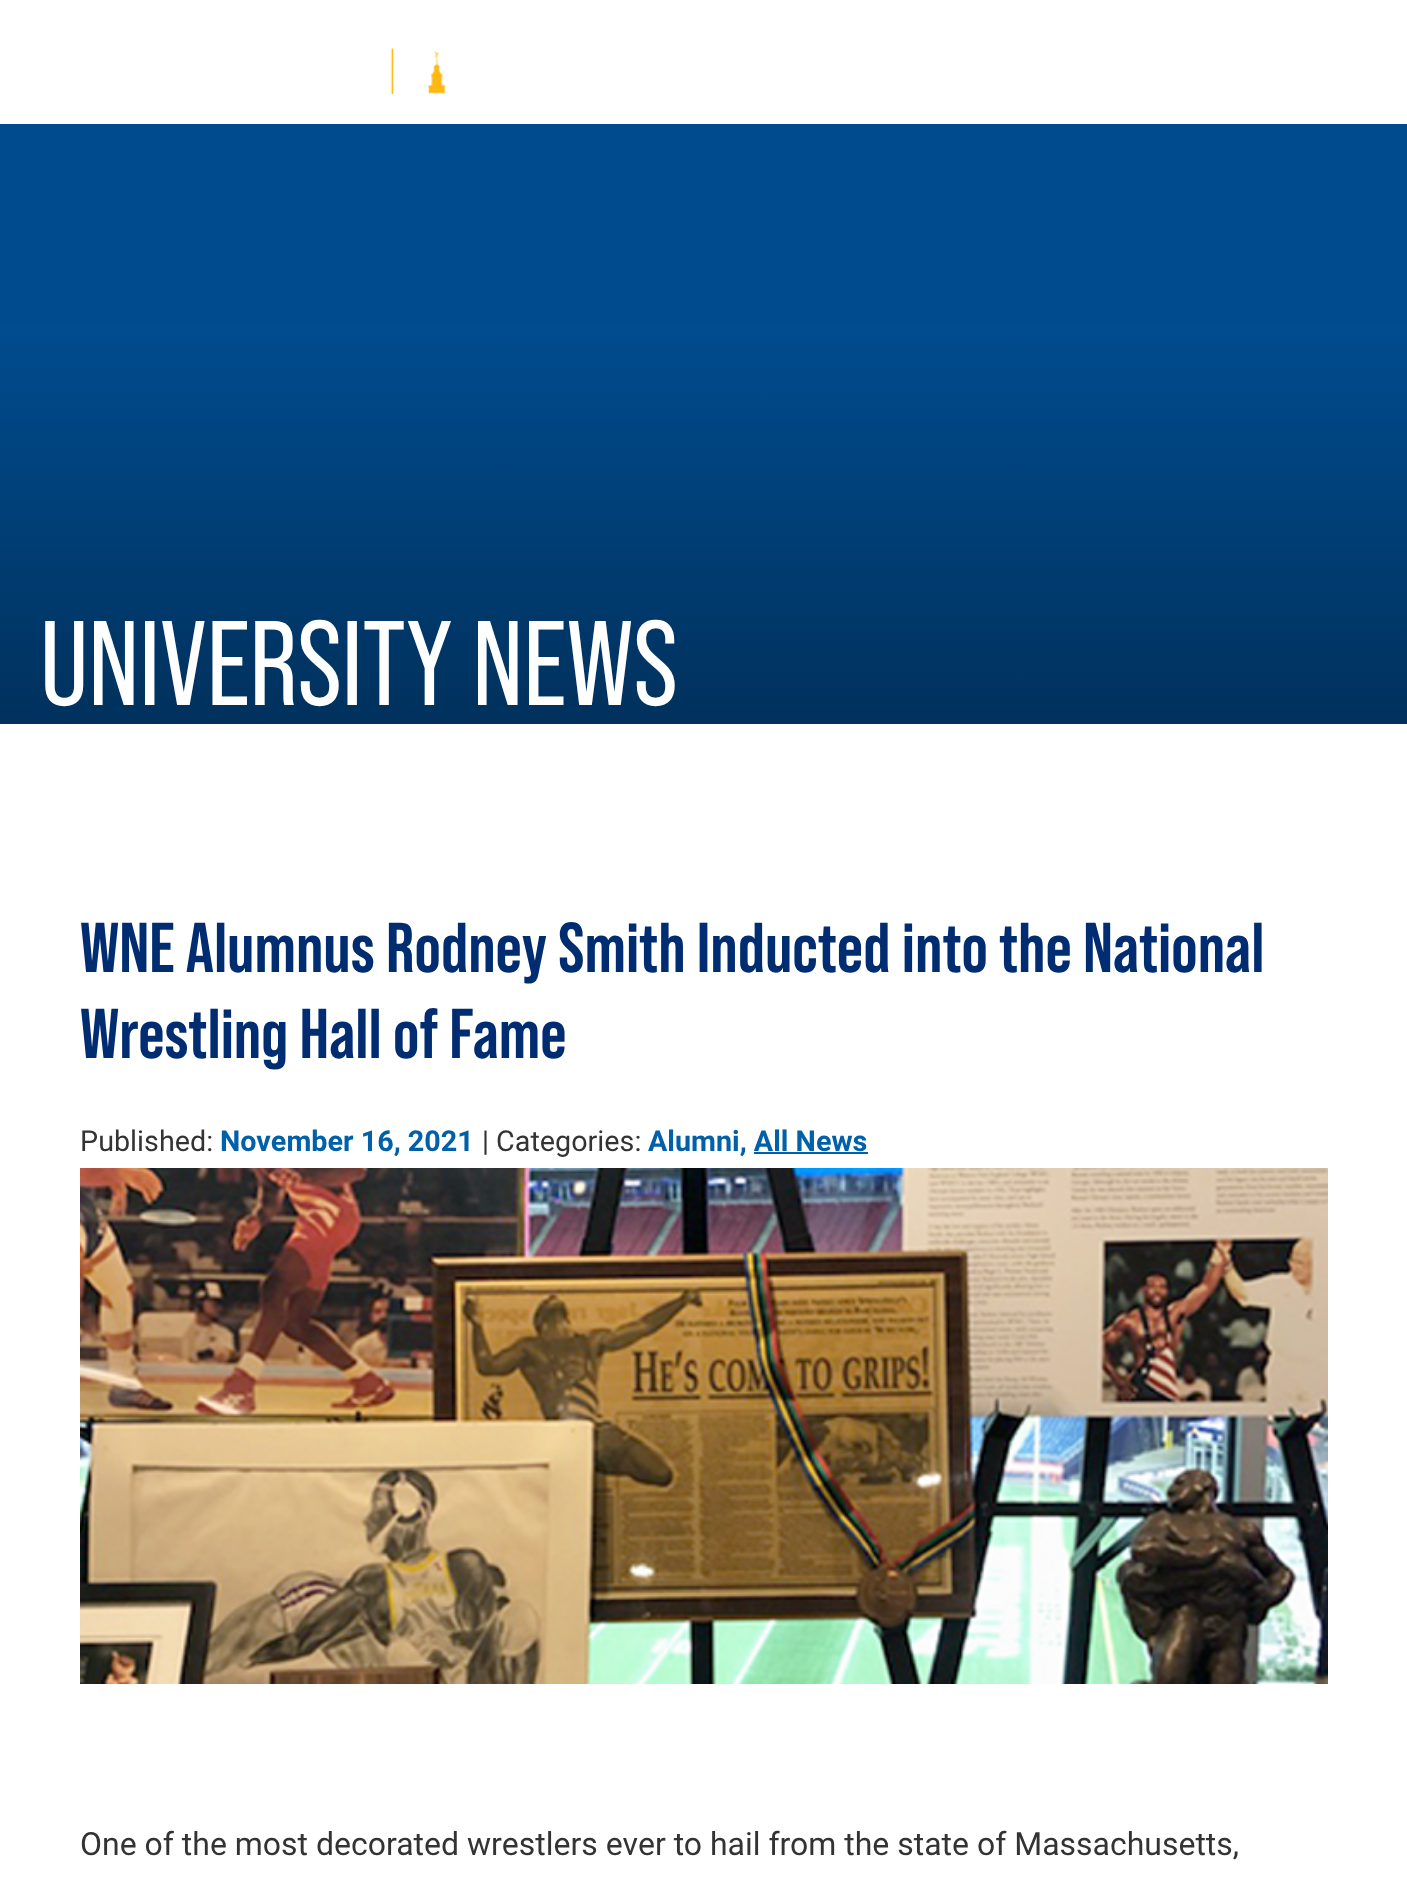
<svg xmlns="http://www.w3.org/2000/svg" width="1407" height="1884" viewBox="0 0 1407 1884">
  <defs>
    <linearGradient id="g1" gradientUnits="userSpaceOnUse" x1="704" y1="724" x2="704" y2="324"><stop offset="0" stop-color="rgb(0,49,93)"/><stop offset="1" stop-color="rgb(0,76,143)"/></linearGradient>
  </defs>
  <rect width="100%" height="100%" fill="rgb(255,255,255)"/>
  <image x="390" y="48" width="57" height="46" href="pic1.png"/>
  <rect x="0" y="124" width="1407" height="200" fill="rgb(0,75,142)"/>
  <rect x="0" y="324" width="1407" height="400" fill="url(#g1)"/>
  <text x="40" y="705" font-family="Bebas Neue" font-size="120" fill="rgb(255,255,255)">UNIVERSITY NEWS</text>
  <g font-family="Bebas Neue" font-size="70.4" font-weight="bold" fill="rgb(0,45,114)">
    <text>
      <tspan x="80" y="972">WNE Alumnus Rodney Smith Inducted into the National</tspan>
      <tspan x="80" y="1058">Wrestling Hall of Fame</tspan>
    </text>
  </g>
  <text x="80" y="1151" font-family="Roboto" font-size="28.75" fill="rgb(51,51,51)">Published:</text>
  <text x="220" y="1151" font-family="Roboto" font-size="28.75" font-weight="bold" fill="rgb(0,96,170)">November 16, 2021</text>
  <text x="482" y="1151" font-family="Roboto" font-size="28.75" fill="rgb(51,51,51)">| Categories:</text>
  <text x="648" y="1151" font-family="Roboto" font-size="28.75" font-weight="bold" fill="rgb(0,96,170)">Alumni, All News</text>
  <rect x="754" y="1152" width="114" height="2" fill="rgb(0,96,170)"/>
  <image x="80" y="1168" width="1248" height="516" href="pic2.png"/>
  <text x="80" y="1855" font-family="Roboto" font-size="32" fill="rgb(51,51,51)">One of the most decorated wrestlers ever to hail from the state of Massachusetts,</text>
</svg>
